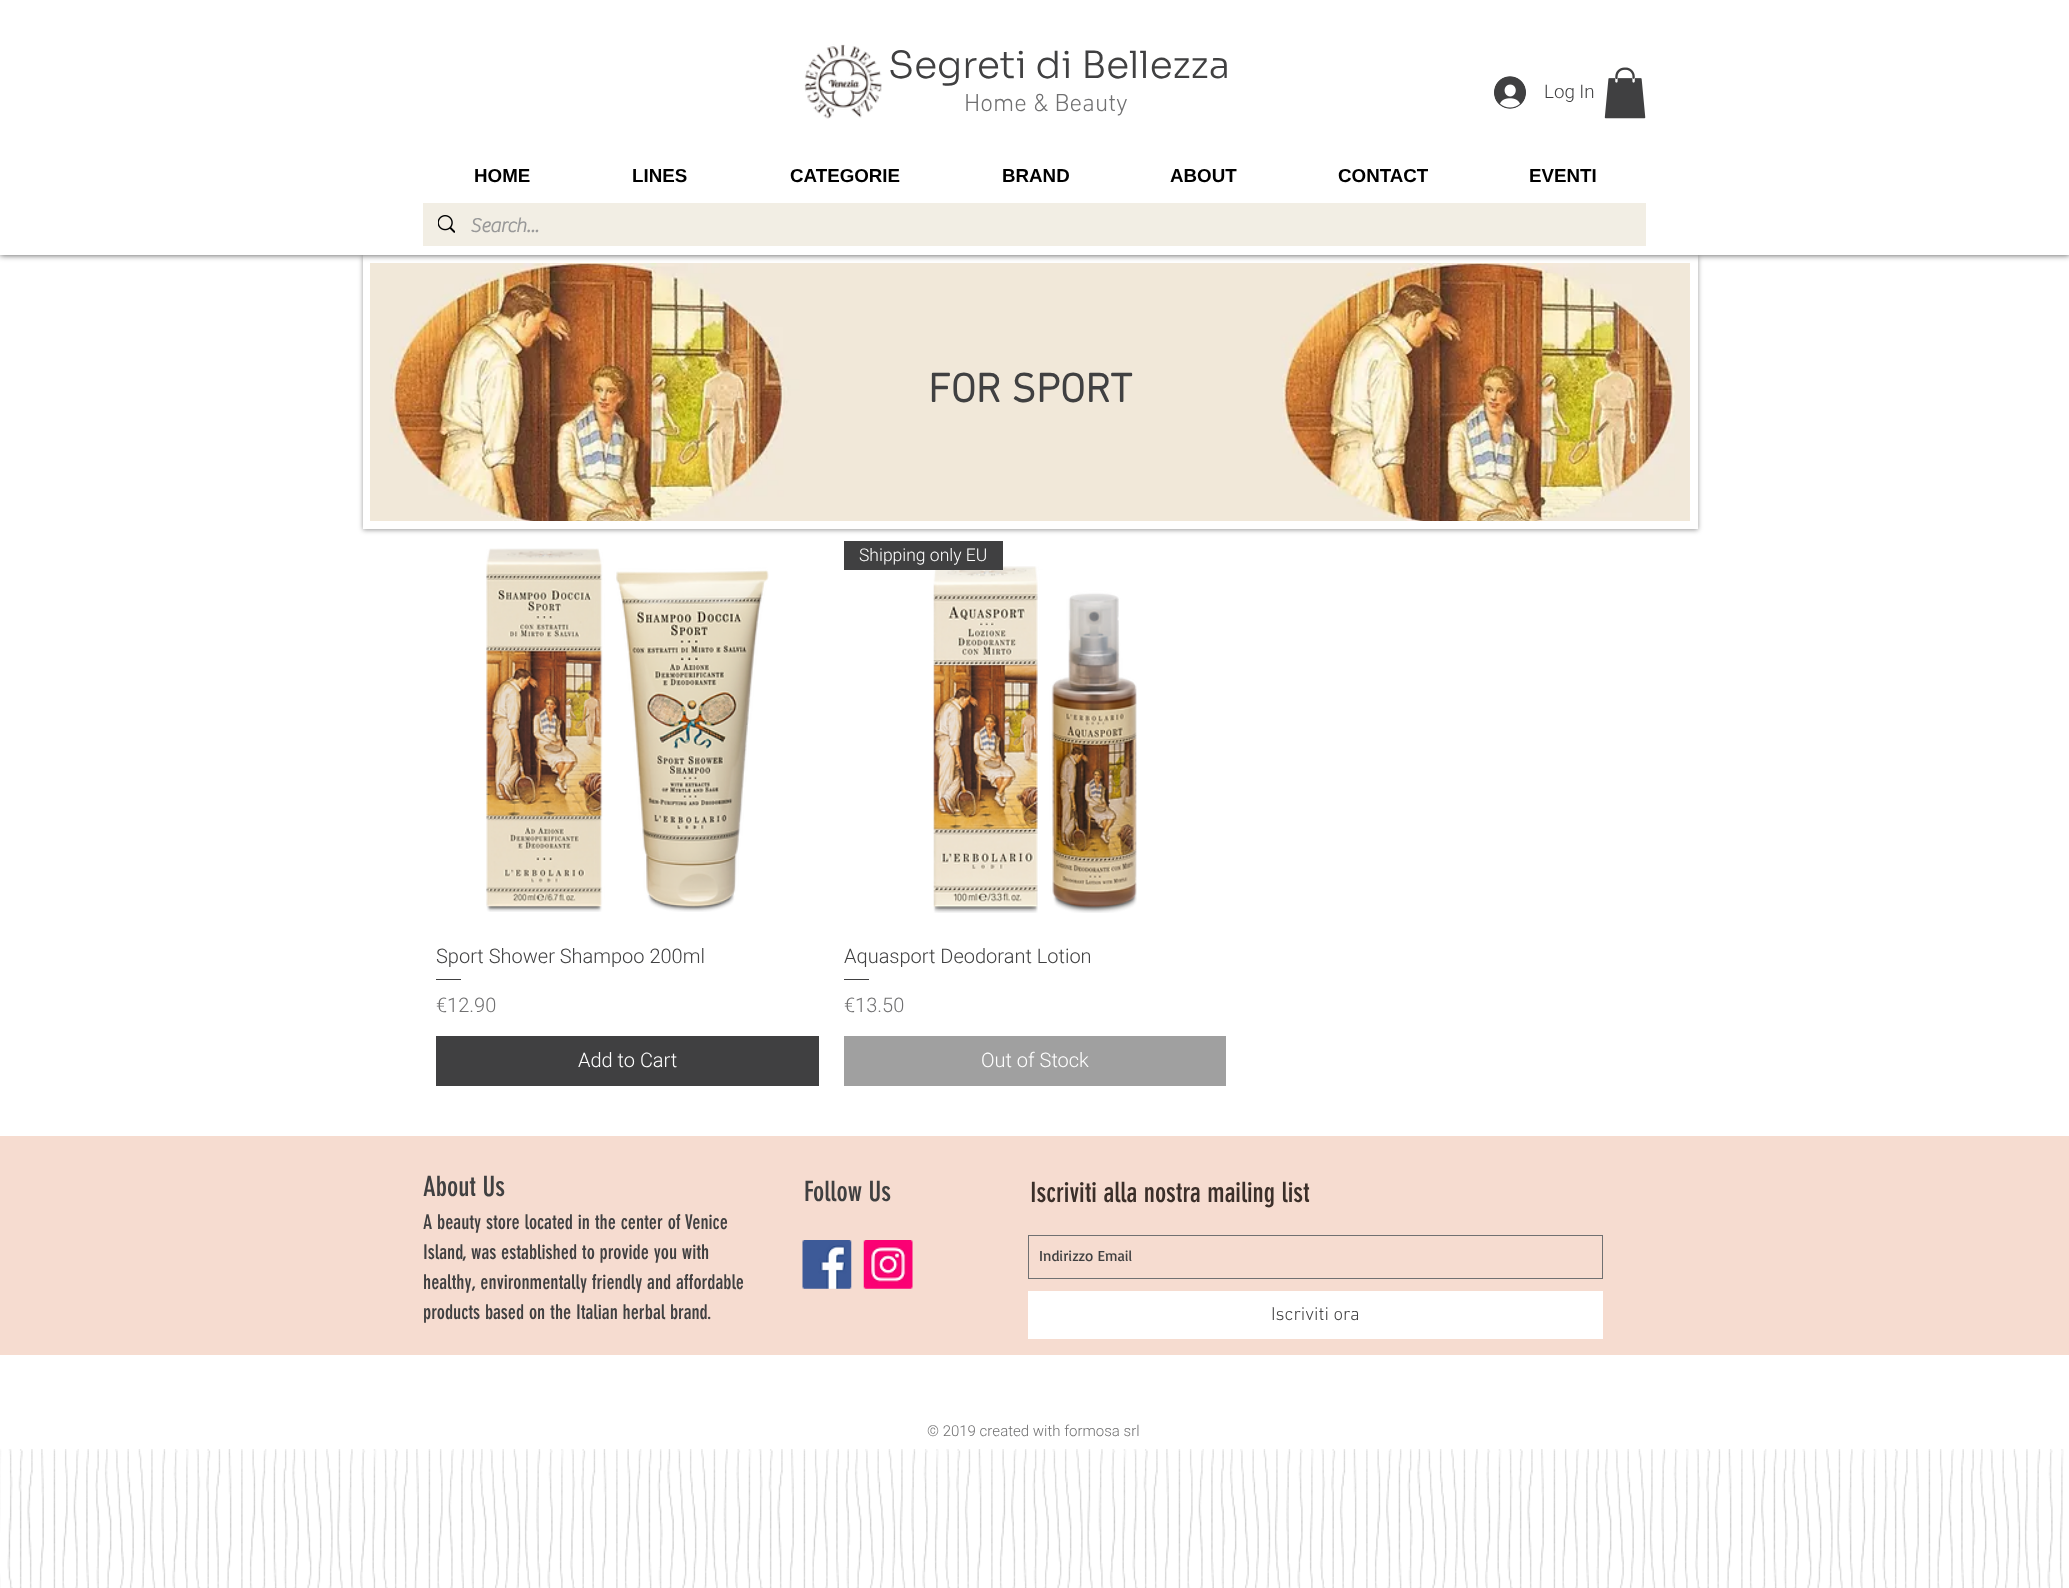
<svg xmlns="http://www.w3.org/2000/svg" width="2069" height="1588" viewBox="0 0 2069 1588">
  <defs>
    <clipPath id="clip1"><path d="M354 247H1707V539H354ZM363 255H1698V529H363Z" clip-rule="evenodd"/></clipPath>
  </defs>
  <rect width="100%" height="100%" fill="rgb(255,255,255)"/>
  <g clip-path="url(#clip1)">
    <rect x="363" y="256" width="1335" height="274" fill="rgba(0,0,0,0.4)" filter="blur(2.5px)"/>
  </g>
  <rect x="363" y="255" width="1335" height="274" fill="rgba(255,255,255,0.89)"/>
  <rect x="367" y="259" width="1327" height="266" fill="none" stroke="rgba(255,255,255,0.89)" stroke-width="8"/>
  <image x="370" y="263" width="1320" height="258" href="pic5.png"/>
  <rect x="0" y="0" width="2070" height="255" fill="rgba(0,0,0,0.7)" filter="blur(3px)"/>
  <rect x="0" y="0" width="2069" height="255" fill="rgb(255,255,255)"/>
  <image x="804" y="44" width="78" height="75" href="pic1.png"/>
  <text x="888" y="78" font-family="Sora" font-size="37.5" font-weight="300" fill="rgb(64,64,65)">Segreti di Bellezza</text>
  <text x="964" y="111" font-family="'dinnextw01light'" font-size="25" font-weight="300" fill="rgb(112,112,113)">Home &amp; Beauty</text>
  <image x="1494" y="76" width="32" height="33" href="pic2.png"/>
  <text x="1544" y="98" font-family="Heebo" font-size="18.75" font-weight="300" fill="rgb(64,64,65)">Log In</text>
  <image x="1604" y="67" width="42" height="52" href="pic3.png"/>
  <g font-family="Liberation Sans" font-size="18.75" font-weight="bold" fill="rgb(0,0,0)">
    <text x="474" y="182">HOME</text>
    <text x="632" y="182">LINES</text>
    <text x="790" y="182">CATEGORIE</text>
    <text x="1002" y="182">BRAND</text>
    <text x="1170" y="182">ABOUT</text>
    <text x="1338" y="182">CONTACT</text>
    <text x="1529" y="182">EVENTI</text>
  </g>
  <rect x="423" y="203" width="1223" height="43" fill="rgb(242,238,228)"/>
  <image x="438" y="215" width="17" height="18" href="pic4.png"/>
  <text x="470" y="232" font-family="'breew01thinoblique'" font-size="20" font-weight="bold" fill="rgb(153,153,153)">Search...</text>
  <text x="928" y="402" font-family="'dinnextw01light'" font-size="41.25" font-weight="bold" fill="rgb(64,64,65)">FOR SPORT</text>
  <image x="486" y="548" width="283" height="364" href="pic6.png"/>
  <text x="436" y="963" font-family="Heebo" font-size="20" font-weight="300" fill="rgb(64,64,65)">Sport Shower Shampoo 200ml</text>
  <rect x="436" y="979" width="25" height="1" fill="rgb(64,64,65)"/>
  <text x="436" y="1012" font-family="Heebo" font-size="20" font-weight="300" fill="rgb(112,112,113)">€12.90</text>
  <rect x="436" y="1036" width="383" height="50" fill="rgb(64,64,65)"/>
  <text x="578" y="1067" font-family="Heebo" font-size="20" font-weight="300" fill="rgb(255,255,255)">Add to Cart</text>
  <image x="933" y="566" width="204" height="347" href="pic7.png"/>
  <rect x="844" y="541" width="159" height="29" fill="rgb(64,64,65)"/>
  <text x="859" y="561" font-family="Heebo" font-size="17.5" font-weight="300" fill="rgb(255,255,255)">Shipping only EU</text>
  <text x="844" y="963" font-family="Heebo" font-size="20" font-weight="300" fill="rgb(64,64,65)">Aquasport Deodorant Lotion</text>
  <rect x="844" y="979" width="25" height="1" fill="rgb(64,64,65)"/>
  <text x="844" y="1012" font-family="Heebo" font-size="20" font-weight="300" fill="rgb(112,112,113)">€13.50</text>
  <rect x="844" y="1036" width="382" height="50" fill="rgb(160,160,160)"/>
  <text x="981" y="1067" font-family="Heebo" font-size="20" font-weight="300" fill="rgb(255,255,255)">Out of Stock</text>
  <rect x="0" y="1136" width="2069" height="219" fill="rgb(246,220,208)"/>
  <text x="423" y="1196" font-family="'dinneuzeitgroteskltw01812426'" font-size="27.5" fill="rgb(64,64,65)">About Us</text>
  <g font-family="'dinneuzeitgroteskltw01812426'" font-size="20" fill="rgb(64,64,65)">
    <text>
      <tspan x="423" y="1229">A beauty store located in the center of Venice</tspan>
      <tspan x="423" y="1259">Island, was established to provide you with</tspan>
      <tspan x="423" y="1289">healthy, environmentally friendly and affordable</tspan>
      <tspan x="423" y="1319">products based on the Italian herbal brand.</tspan>
    </text>
  </g>
  <text x="804" y="1201" font-family="'dinneuzeitgroteskltw01812426'" font-size="27.5" fill="rgb(64,64,65)">Follow Us</text>
  <image x="802" y="1240" width="50" height="49" href="pic8.png"/>
  <image x="863" y="1240" width="50" height="49" href="pic9.png"/>
  <text x="1030" y="1202" font-family="'dinneuzeitgroteskltw01812426'" font-size="27.5" fill="rgb(59,47,41)">Iscriviti alla nostra mailing list</text>
  <rect x="1028.5" y="1235.5" width="574" height="43" fill="none" stroke="rgb(112,112,113)"/>
  <text x="1039" y="1261" font-family="Basic" font-size="15" fill="rgb(64,64,65)">Indirizzo Email</text>
  <rect x="1028" y="1291" width="575" height="48" fill="rgb(255,255,255)"/>
  <text x="1271" y="1320" font-family="'dinnextw01light'" font-size="18.75" font-weight="300" fill="rgb(64,64,65)">Iscriviti ora</text>
  <text x="927" y="1436" font-family="Heebo" font-size="15" font-weight="300" fill="rgb(112,112,113)">© 2019 created with formosa srl</text>
  <image x="0" y="1449" width="2064" height="139" href="pic10.png"/>
</svg>
